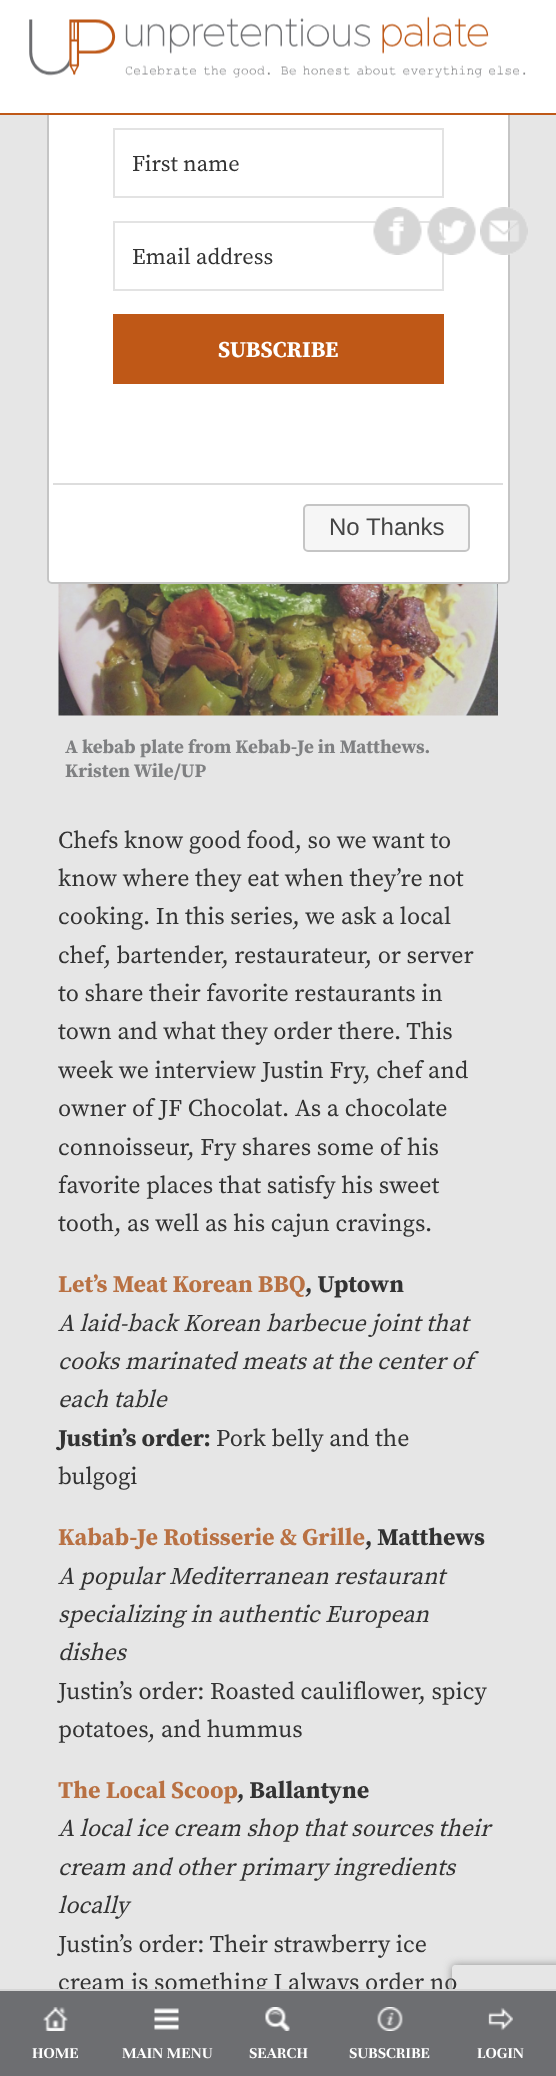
<svg xmlns="http://www.w3.org/2000/svg" width="556" height="2076" viewBox="0 0 556 2076">
  <defs>
    <clipPath id="clip1"><path d="M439 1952H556V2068H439ZM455 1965H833C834.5 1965 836 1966.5 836 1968V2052C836 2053.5 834.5 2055 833 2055H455C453.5 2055 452 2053.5 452 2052V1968C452 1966.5 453.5 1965 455 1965Z" clip-rule="evenodd"/></clipPath>
  </defs>
  <rect width="100%" height="100%" fill="rgb(230,230,230)"/>
  <rect x="48" y="-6" width="461" height="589" rx="4" fill="rgb(255,255,255)" stroke="rgb(197,197,197)" stroke-width="2"/>
  <rect x="114" y="129" width="329" height="68" fill="none" stroke="rgb(227,227,227)" stroke-width="2"/>
  <text x="132" y="171" font-family="Source Serif Pro" font-size="22.5" fill="rgb(51,51,51)">First name</text>
  <rect x="114" y="222" width="329" height="68" fill="none" stroke="rgb(227,227,227)" stroke-width="2"/>
  <text x="132" y="264" font-family="Source Serif Pro" font-size="22.5" fill="rgb(51,51,51)">Email address</text>
  <rect x="113" y="314" width="331" height="70" fill="rgb(191,88,23)"/>
  <text x="218" y="357" font-family="Source Serif Pro" font-size="22.5" font-weight="bold" fill="rgb(255,255,255)">SUBSCRIBE</text>
  <rect x="53" y="483" width="450" height="2" fill="rgb(221,221,221)"/>
  <rect x="304" y="505" width="165" height="46" rx="4" fill="rgb(246,246,246)" stroke="rgb(197,197,197)" stroke-width="2"/>
  <text x="329" y="535" font-family="Liberation Sans" font-size="24" fill="rgb(69,69,69)">No Thanks</text>
  <rect x="0" y="0" width="556" height="113" fill="rgb(255,255,255)"/>
  <rect x="0" y="113" width="556" height="2" fill="rgb(191,88,23)"/>
  <image x="29" y="16" width="497" height="62" href="pic1.png"/>
  <image x="373" y="207" width="49" height="48" href="pic2.png"/>
  <image x="427" y="207" width="49" height="48" href="pic3.png"/>
  <image x="480" y="207" width="48" height="48" href="pic4.png"/>
  <image x="58" y="584" width="440" height="132" href="pic5.png"/>
  <g font-family="Source Serif Pro" font-size="19" font-weight="bold" fill="rgb(127,128,130)">
    <text>
      <tspan x="65" y="753">A kebab plate from Kebab-Je in Matthews.</tspan>
      <tspan x="65" y="777">Kristen Wile/UP</tspan>
    </text>
  </g>
  <g font-family="Source Serif Pro" font-size="24" fill="rgb(51,51,51)">
    <text>
      <tspan x="58" y="848">Chefs know good food, so we want to</tspan>
      <tspan x="58" y="886">know where they eat when they’re not</tspan>
      <tspan x="58" y="924">cooking. In this series, we ask a local</tspan>
      <tspan x="58" y="963">chef, bartender, restaurateur, or server</tspan>
      <tspan x="58" y="1001">to share their favorite restaurants in</tspan>
      <tspan x="58" y="1039">town and what they order there. This</tspan>
      <tspan x="58" y="1078">week we interview Justin Fry, chef and</tspan>
      <tspan x="58" y="1116">owner of JF Chocolat. As a chocolate</tspan>
      <tspan x="58" y="1155">connoisseur, Fry shares some of his</tspan>
      <tspan x="58" y="1193">favorite places that satisfy his sweet</tspan>
      <tspan x="58" y="1231">tooth, as well as his cajun cravings.</tspan>
    </text>
  </g>
  <text x="58" y="1292" font-family="Source Serif Pro" font-size="24" font-weight="bold" fill="rgb(185,113,67)">Let’s Meat Korean BBQ</text>
  <text x="305" y="1292" font-family="Source Serif Pro" font-size="24" font-weight="bold" fill="rgb(51,51,51)">, Uptown</text>
  <g font-family="Source Serif Pro" font-size="24" font-style="italic" fill="rgb(51,51,51)">
    <text>
      <tspan x="58" y="1331">A laid-back Korean barbecue joint that</tspan>
      <tspan x="58" y="1369">cooks marinated meats at the center of</tspan>
      <tspan x="58" y="1407">each table</tspan>
    </text>
  </g>
  <text x="58" y="1446" font-family="Source Serif Pro" font-size="24" font-weight="bold" fill="rgb(51,51,51)">Justin’s order:</text>
  <g font-family="Source Serif Pro" font-size="24" fill="rgb(51,51,51)">
    <text x="216" y="1446">Pork belly and the</text>
    <text x="58" y="1484">bulgogi</text>
  </g>
  <text x="58" y="1545" font-family="Source Serif Pro" font-size="24" font-weight="bold" fill="rgb(185,113,67)">Kabab-Je Rotisserie &amp; Grille</text>
  <text x="365" y="1545" font-family="Source Serif Pro" font-size="24" font-weight="bold" fill="rgb(51,51,51)">, Matthews</text>
  <g font-family="Source Serif Pro" font-size="24" font-style="italic" fill="rgb(51,51,51)">
    <text>
      <tspan x="58" y="1584">A popular Mediterranean restaurant</tspan>
      <tspan x="58" y="1622">specializing in authentic European</tspan>
      <tspan x="58" y="1660">dishes</tspan>
    </text>
  </g>
  <g font-family="Source Serif Pro" font-size="24" fill="rgb(51,51,51)">
    <text>
      <tspan x="58" y="1699">Justin’s order: Roasted cauliflower, spicy</tspan>
      <tspan x="58" y="1737">potatoes, and hummus</tspan>
    </text>
  </g>
  <text x="58" y="1798" font-family="Source Serif Pro" font-size="24" font-weight="bold" fill="rgb(185,113,67)">The Local Scoop</text>
  <text x="237" y="1798" font-family="Source Serif Pro" font-size="24" font-weight="bold" fill="rgb(51,51,51)">, Ballantyne</text>
  <g font-family="Source Serif Pro" font-size="24" font-style="italic" fill="rgb(51,51,51)">
    <text>
      <tspan x="58" y="1836">A local ice cream shop that sources their</tspan>
      <tspan x="58" y="1875">cream and other primary ingredients</tspan>
      <tspan x="58" y="1913">locally</tspan>
    </text>
  </g>
  <g font-family="Source Serif Pro" font-size="24" fill="rgb(51,51,51)">
    <text>
      <tspan x="58" y="1952">Justin’s order: Their strawberry ice</tspan>
      <tspan x="58" y="1990">cream is something I always order no</tspan>
    </text>
  </g>
  <g clip-path="url(#clip1)">
    <rect x="452" y="1965" width="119" height="90" rx="3" fill="rgb(141,141,141)" filter="blur(4px)"/>
  </g>
  <rect x="0" y="1991" width="556" height="85" fill="rgb(109,110,113)"/>
  <rect x="0" y="1989" width="556" height="2" fill="rgb(214,214,214)"/>
  <image x="43" y="2007" width="25" height="24" href="pic6.png"/>
  <text x="32" y="2058" font-family="Unna" font-size="16.5" font-weight="bold" fill="rgb(255,255,255)">HOME</text>
  <image x="154" y="2008" width="25" height="22" href="pic7.png"/>
  <text x="122" y="2058" font-family="Unna" font-size="16.5" font-weight="bold" fill="rgb(255,255,255)">MAIN MENU</text>
  <image x="265" y="2007" width="25" height="24" href="pic8.png"/>
  <text x="249" y="2058" font-family="Unna" font-size="16.5" font-weight="bold" fill="rgb(255,255,255)">SEARCH</text>
  <image x="377" y="2007" width="26" height="24" href="pic9.png"/>
  <text x="349" y="2058" font-family="Unna" font-size="16.5" font-weight="bold" fill="rgb(255,255,255)">SUBSCRIBE</text>
  <image x="488" y="2007" width="25" height="24" href="pic10.png"/>
  <text x="477" y="2058" font-family="Unna" font-size="16.5" font-weight="bold" fill="rgb(255,255,255)">LOGIN</text>
</svg>
